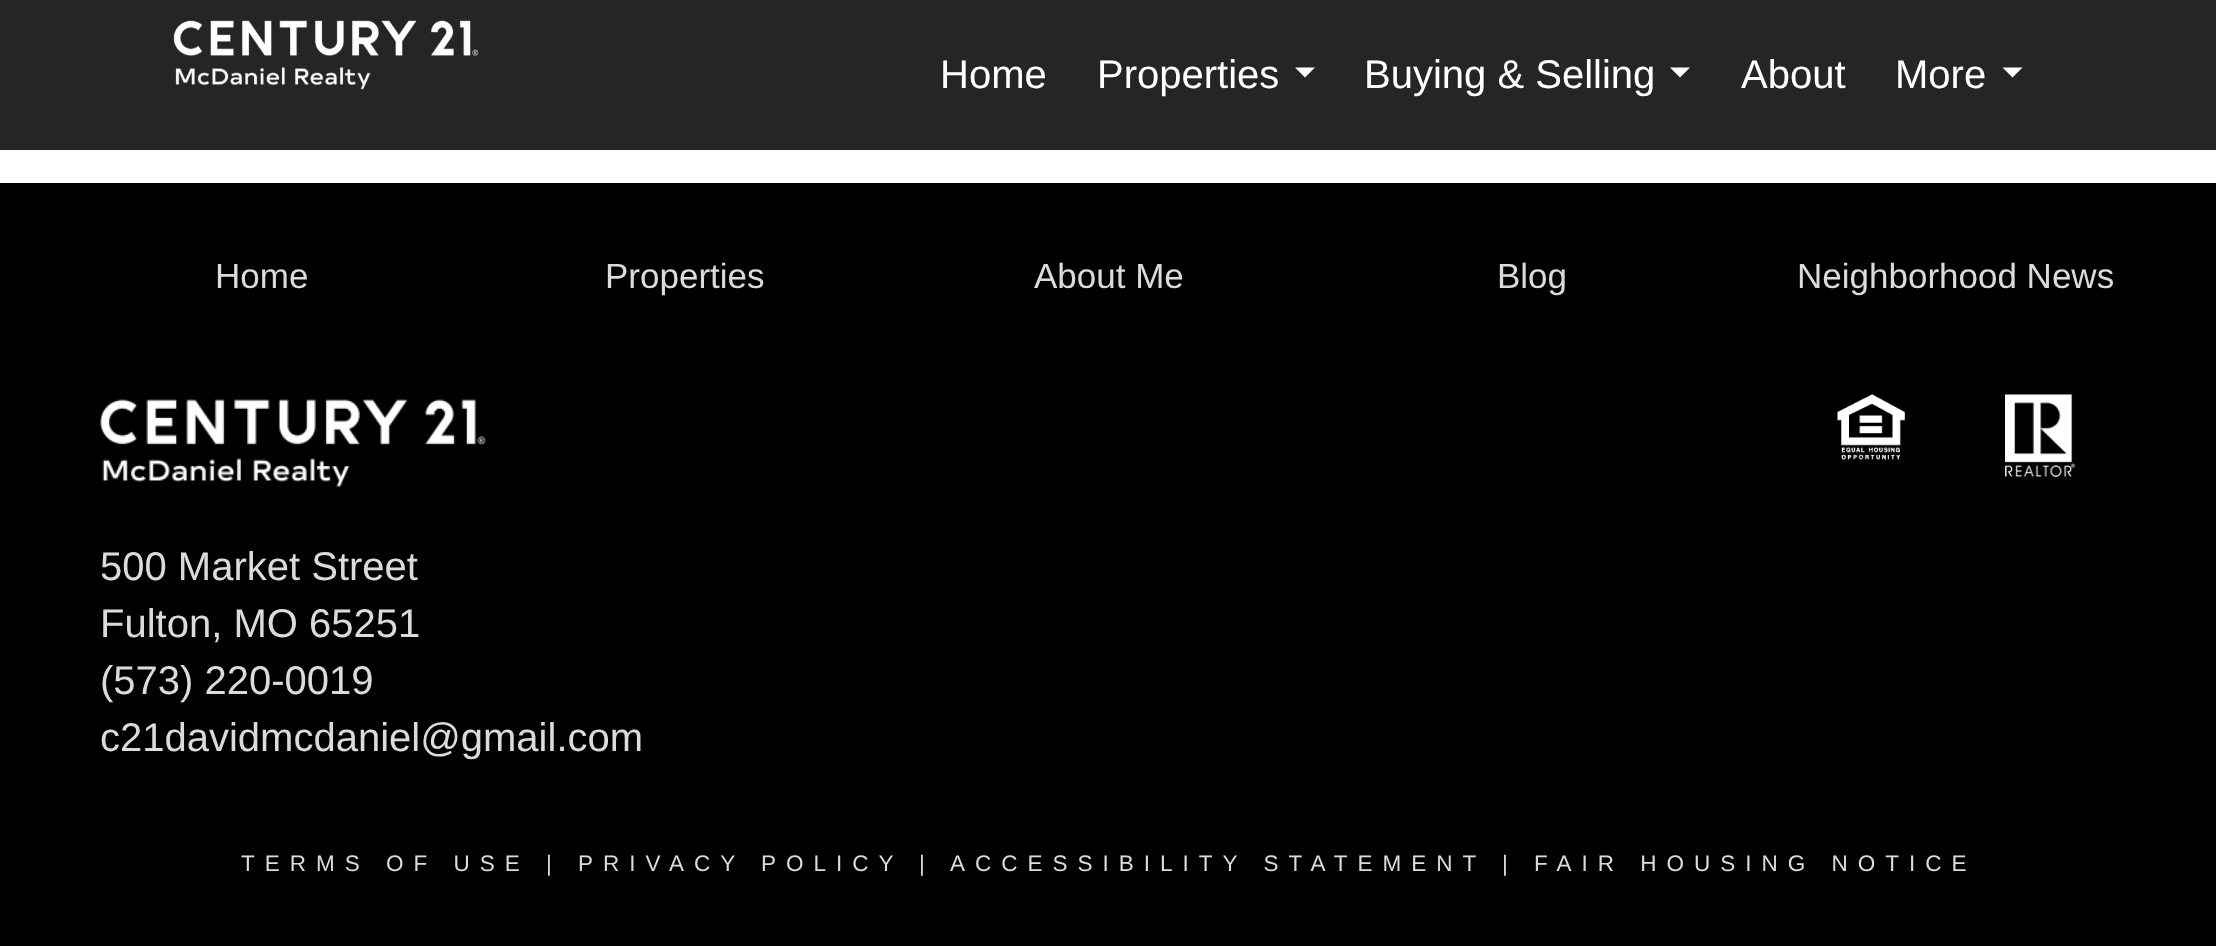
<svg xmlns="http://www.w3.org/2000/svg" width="2216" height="946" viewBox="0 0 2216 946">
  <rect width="100%" height="100%" fill="rgb(255,255,255)"/>
  <rect x="0" y="0" width="2216" height="150" fill="rgb(37,37,38)"/>
  <image x="173" y="20" width="306" height="70" href="pic1.png"/>
  <g font-family="Liberation Sans" font-size="40" fill="rgb(255,255,255)">
    <text x="940" y="88">Home</text>
    <text x="1097" y="88">Properties</text>
  </g>
  <path d="M1295 67.5H1315L1305 77.5Z" fill="rgb(255,255,255)"/>
  <text x="1364" y="88" font-family="Liberation Sans" font-size="40" fill="rgb(255,255,255)">Buying &amp; Selling</text>
  <path d="M1670 67.5H1690L1680 77.5Z" fill="rgb(255,255,255)"/>
  <g font-family="Liberation Sans" font-size="40" fill="rgb(255,255,255)">
    <text x="1741" y="88">About</text>
    <text x="1895" y="88">More</text>
  </g>
  <path d="M2002.5 67.5H2022.5L2012.5 77.5Z" fill="rgb(255,255,255)"/>
  <rect x="0" y="183" width="2216" height="763" fill="rgb(0,0,0)"/>
  <g font-family="Liberation Sans" font-size="35" fill="rgb(219,219,219)">
    <text x="215" y="288">Home</text>
    <text x="605" y="288">Properties</text>
    <text x="1034" y="288">About Me</text>
    <text x="1497" y="288">Blog</text>
    <text x="1797" y="288">Neighborhood News</text>
  </g>
  <image x="1837" y="394" width="68" height="66" href="pic2.png"/>
  <image x="2005" y="394" width="70" height="83" href="pic3.png"/>
  <image x="100" y="399" width="387" height="89" href="pic4.png"/>
  <g font-family="Liberation Sans" font-size="40" fill="rgb(219,219,219)">
    <text>
      <tspan x="100" y="580">500 Market Street</tspan>
      <tspan x="100" y="637">Fulton, MO 65251</tspan>
      <tspan x="100" y="694">(573) 220-0019</tspan>
      <tspan x="100" y="751">c21davidmcdaniel@gmail.com</tspan>
    </text>
  </g>
  <g font-family="Liberation Sans" font-size="22.5" letter-spacing="10" fill="rgb(219,219,219)">
    <text x="241" y="871">TERMS OF USE | PRIVACY POLICY</text>
    <text x="919" y="871">|</text>
    <text x="950" y="871">ACCESSIBILITY STATEMENT</text>
    <text x="1502" y="871">| FAIR HOUSING NOTICE</text>
  </g>
</svg>
